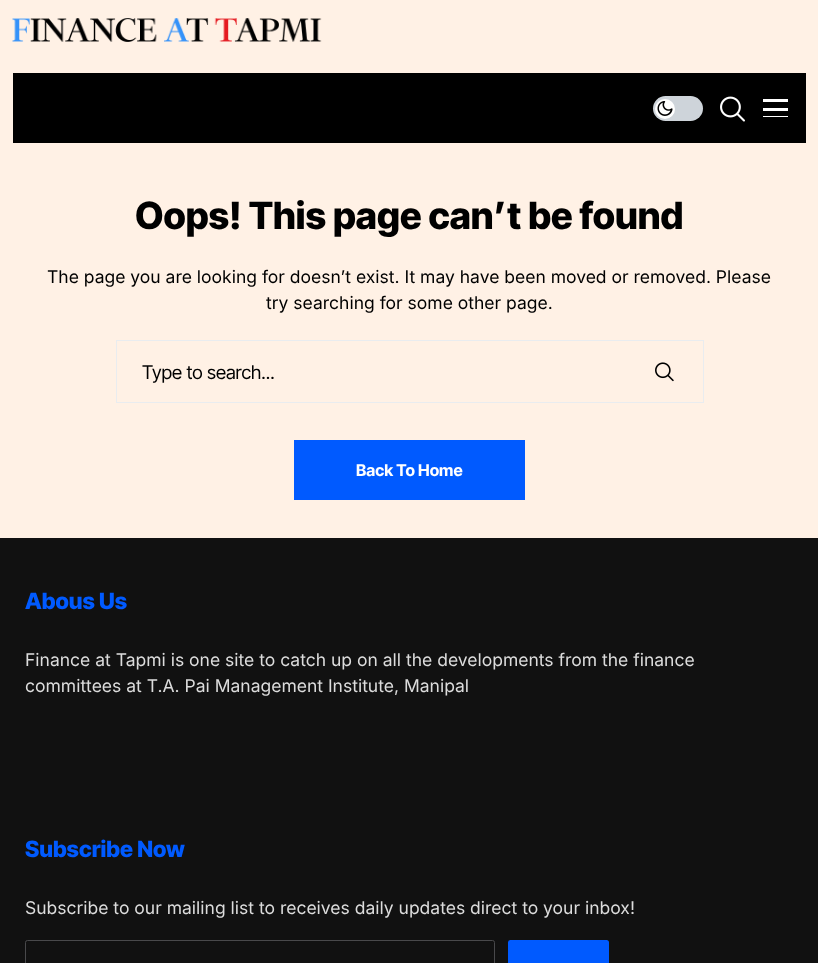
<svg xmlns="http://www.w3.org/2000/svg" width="818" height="963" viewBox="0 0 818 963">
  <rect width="100%" height="100%" fill="rgb(255,241,229)"/>
  <image x="12" y="18" width="310" height="24" href="pic1.png"/>
  <rect x="13" y="73" width="793" height="70" fill="rgb(0,0,0)"/>
  <rect x="653" y="96" width="50" height="25" rx="12.5" fill="rgb(206,212,218)"/>
  <circle cx="665" cy="109" r="10" fill="rgb(255,255,255)"/>
  <image x="657" y="101" width="16" height="15" href="pic2.png"/>
  <image x="720" y="96" width="25" height="26" href="pic3.png"/>
  <rect x="763" y="99" width="25" height="3" fill="rgb(255,255,255)"/>
  <rect x="763" y="108" width="25" height="3" fill="rgb(255,255,255)"/>
  <rect x="763" y="116" width="25" height="1" fill="rgb(255,255,255)"/>
  <text x="135" y="229" font-family="Inter Tight" font-size="37.5" font-weight="800" fill="rgb(0,0,0)">Oops! This page can’t be found</text>
  <g font-family="Inter" font-size="17.5" fill="rgb(0,0,0)">
    <text x="47" y="283">The page you are looking for doesn’t exist. It may have been moved or removed. Please</text>
    <text x="266" y="309">try searching for some other page.</text>
  </g>
  <rect x="116.5" y="340.5" width="587" height="62" fill="none" stroke="rgb(233,236,239)"/>
  <text x="142" y="379" font-family="Inter Tight" font-size="18.75" fill="rgb(0,0,0)">Type to search...</text>
  <image x="655" y="362" width="19" height="20" href="pic4.png"/>
  <rect x="294" y="440" width="231" height="60" fill="rgb(0,90,255)"/>
  <text x="356" y="476" font-family="Inter Tight" font-size="16.25" font-weight="bold" fill="rgb(255,255,255)">Back To Home</text>
  <rect x="0" y="538" width="818" height="425" fill="rgb(17,17,17)"/>
  <text x="25" y="609" font-family="Inter Tight" font-size="22.5" font-weight="800" fill="rgb(0,90,255)">Abous Us</text>
  <g font-family="Inter" font-size="17.5" fill="rgb(220,220,220)">
    <text>
      <tspan x="25" y="666">Finance at Tapmi is one site to catch up on all the developments from the finance</tspan>
      <tspan x="25" y="692">committees at T.A. Pai Management Institute, Manipal</tspan>
    </text>
  </g>
  <text x="25" y="857" font-family="Inter Tight" font-size="22.5" font-weight="800" fill="rgb(0,90,255)">Subscribe Now</text>
  <text x="25" y="914" font-family="Inter" font-size="17.5" fill="rgb(220,220,220)">Subscribe to our mailing list to receives daily updates direct to your inbox!</text>
  <rect x="25.5" y="940.5" width="469" height="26" rx="2" fill="none" stroke="rgb(73,73,75)"/>
  <rect x="508" y="940" width="101" height="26" rx="2.5" fill="rgb(0,90,255)"/>
</svg>
